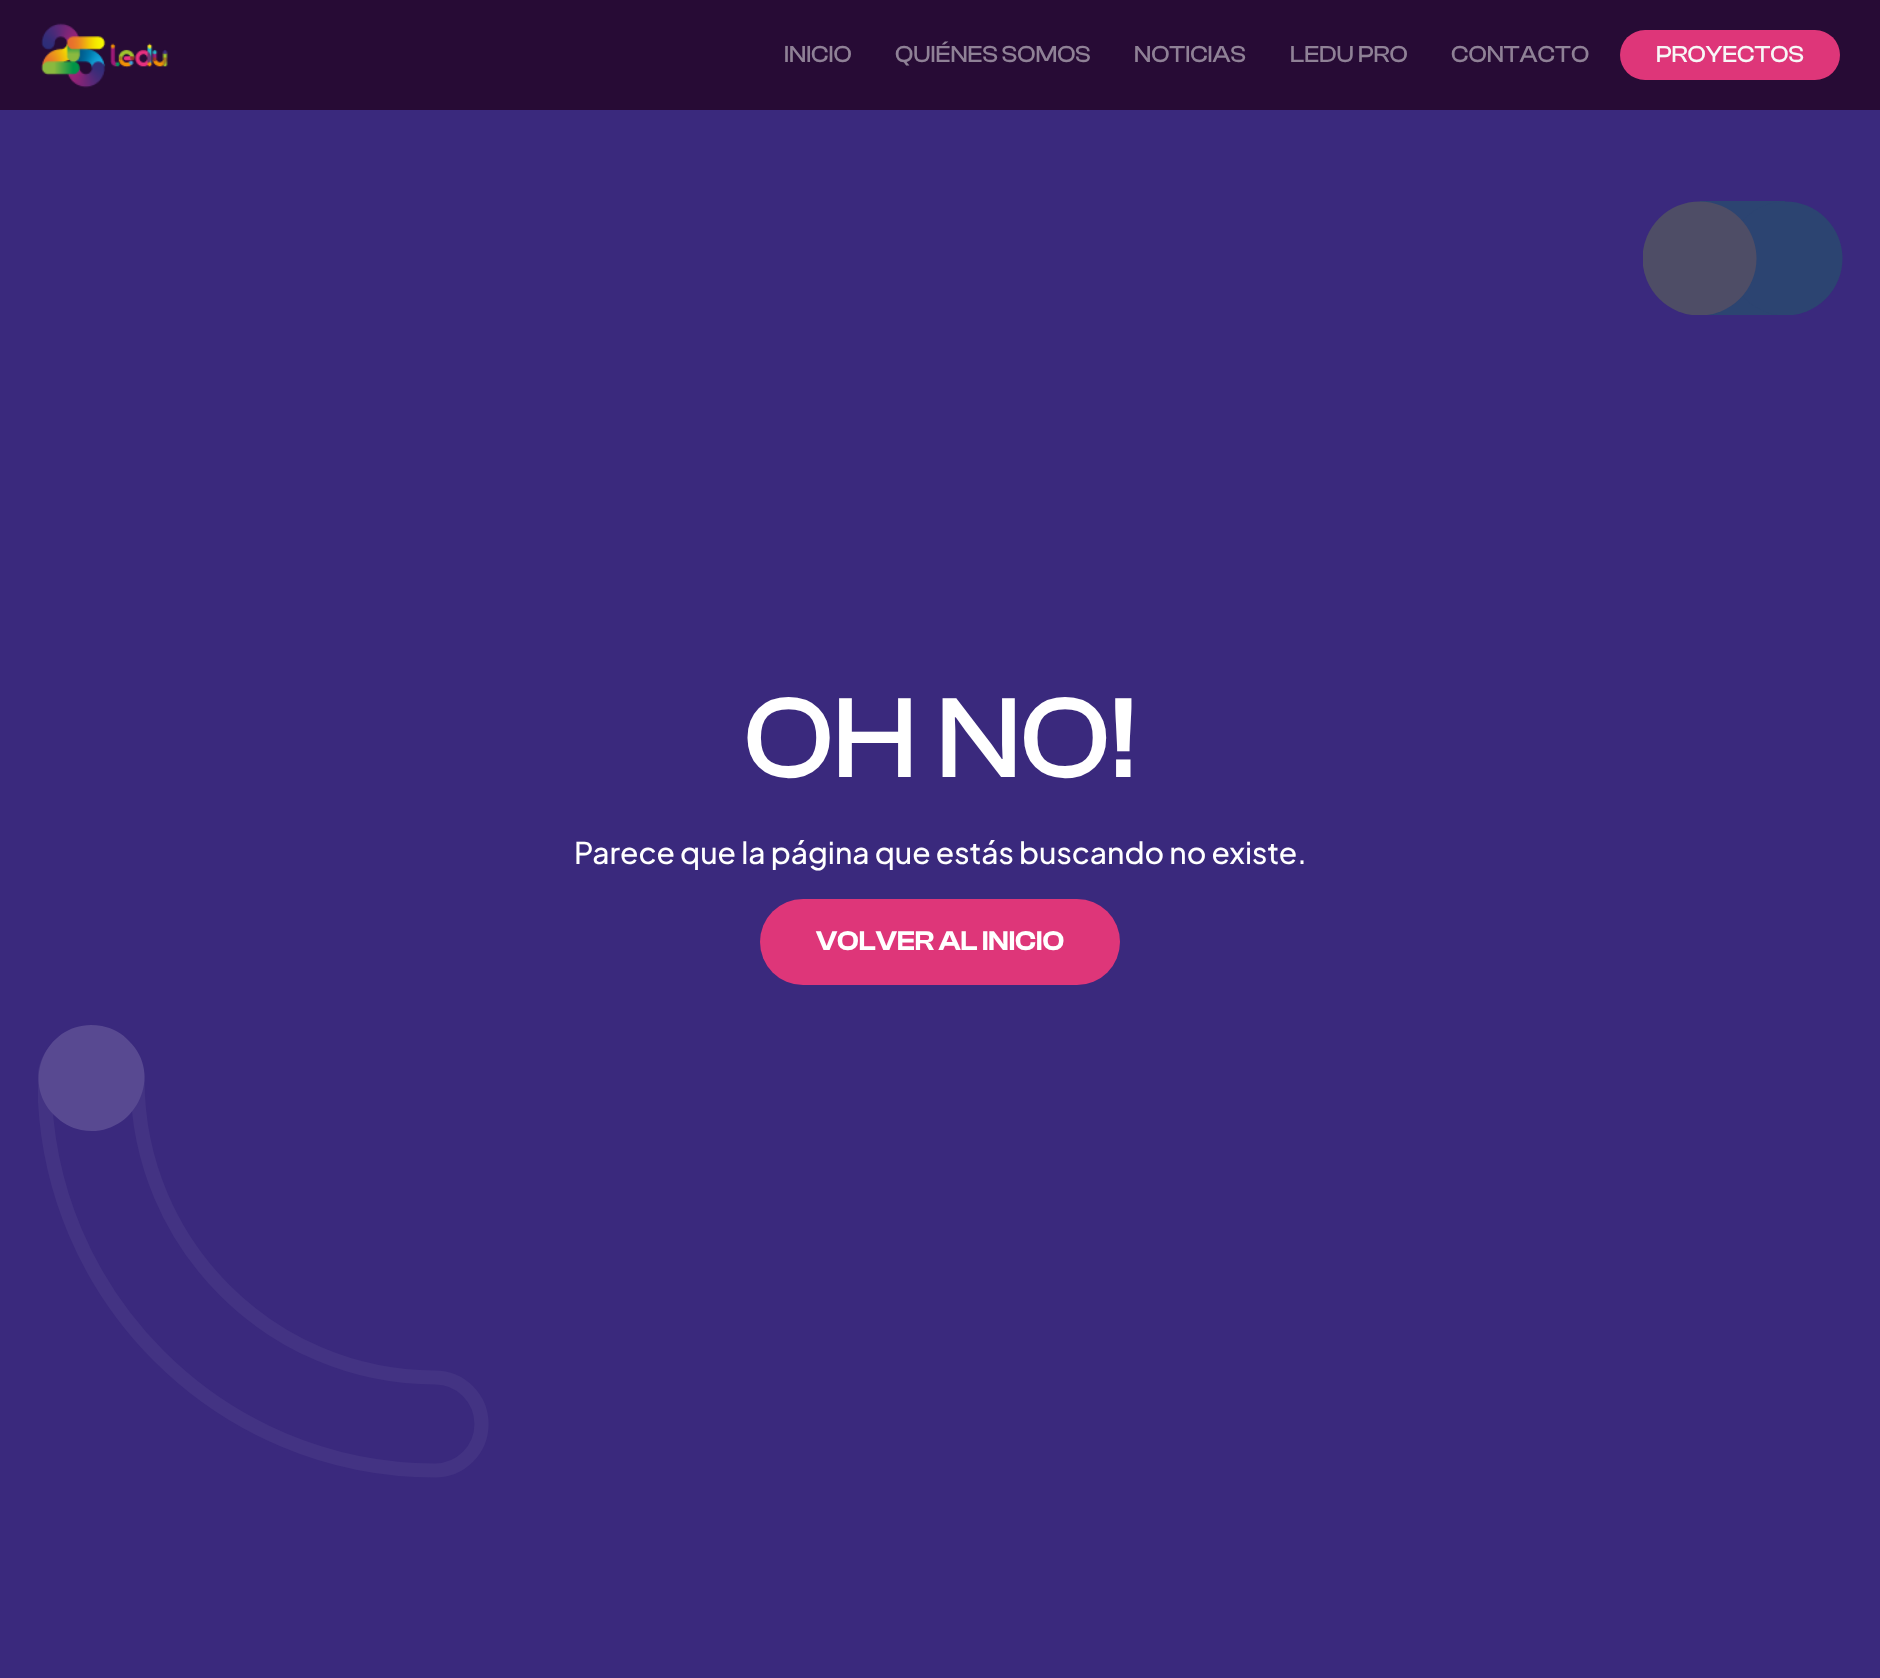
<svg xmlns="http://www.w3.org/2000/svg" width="1880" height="1678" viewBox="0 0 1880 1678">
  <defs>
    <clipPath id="clip1"><rect x="1643" y="201" width="200" height="114"/></clipPath>
    <clipPath id="clip2"><rect x="38" y="1025" width="451" height="453"/></clipPath>
  </defs>
  <rect width="100%" height="100%" fill="rgb(58,41,125)"/>
  <rect x="0" y="0" width="1880" height="110" fill="rgb(39,11,53)"/>
  <image x="41" y="23" width="127" height="65" href="pic1.png"/>
  <g font-family="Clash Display" font-size="24" font-weight="500" fill="rgb(143,129,150)">
    <text x="784" y="62">INICIO</text>
    <text x="895" y="62">QUIÉNES SOMOS</text>
    <text x="1134" y="62">NOTICIAS</text>
    <text x="1290" y="62">LEDU PRO</text>
    <text x="1451" y="62">CONTACTO</text>
  </g>
  <rect x="1620" y="30" width="220" height="50" rx="25" fill="rgb(222,54,121)"/>
  <text x="1656" y="62" font-family="Clash Display" font-size="24" font-weight="500" fill="rgb(247,247,247)">PROYECTOS</text>
  <rect x="1700" y="201" width="85" height="114" fill="rgb(44,68,113)"/>
  <g clip-path="url(#clip1)">
    <circle cx="1785.5" cy="258.5" r="57" fill="rgb(44,68,113)"/>
    <circle cx="1699.5" cy="258.5" r="57" fill="rgb(78,77,102)"/>
  </g>
  <text x="744" y="777" font-family="Clash Display" font-size="117.5" font-weight="500" fill="rgb(255,255,255)">OH NO!</text>
  <text x="574" y="864" font-family="Plus Jakarta Sans" font-size="30" font-weight="500" fill="rgb(255,255,255)">Parece que la página que estás buscando no existe.</text>
  <rect x="760" y="899" width="360" height="86" rx="43" fill="rgb(222,54,121)"/>
  <text x="816" y="950" font-family="Clash Display" font-size="28" font-weight="600" fill="rgb(255,255,255)">VOLVER AL INICIO</text>
  <g clip-path="url(#clip2)">
    <path d="M435 1377.5C271 1377.5 137.5 1244 137.5 1080C137.5 1063 129 1048 114.5 1039.5C100 1031 82 1031 68 1039.5C53.5 1048 44.5 1063 44.5 1080C44.5 1295.5 219.5 1470.5 435 1470.5C461 1470.5 481.5 1449.5 481.5 1424C481.5 1398.5 461 1377.5 435 1377.5Z" fill="none" stroke="rgb(67,51,131)" stroke-width="14.2" stroke-linecap="round"/>
  </g>
  <path d="M54 1115C62 1123 71 1128 81 1130C132 1140 166 1077 129 1041C122 1033 112 1028 102 1026C50 1016 18 1079 54 1115Z" fill="rgb(88,73,145)"/>
</svg>
